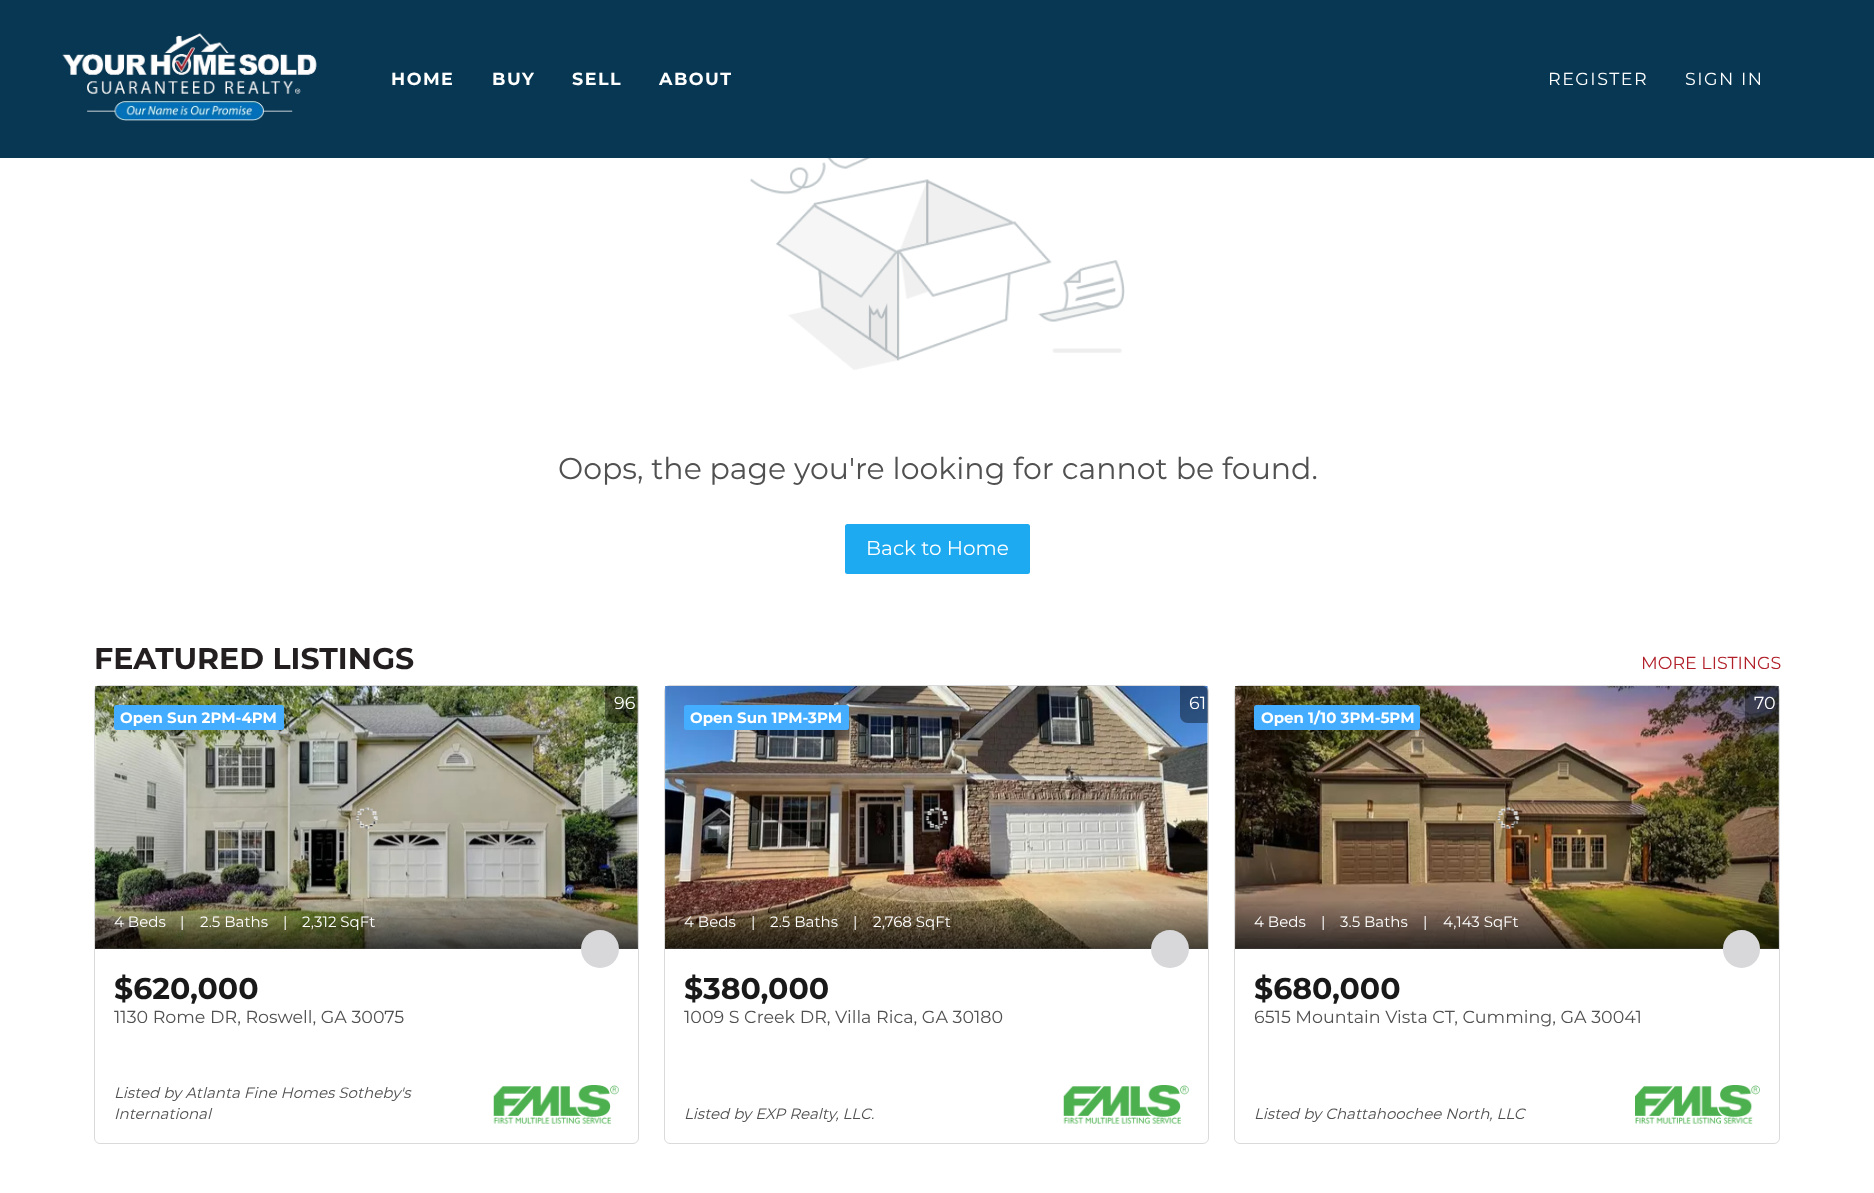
<svg xmlns="http://www.w3.org/2000/svg" width="1874" height="1193" viewBox="0 0 1874 1193">
  <defs>
    <linearGradient id="g1" gradientUnits="userSpaceOnUse" x1="366" y1="899" x2="366" y2="949"><stop offset="0" stop-color="rgb(0,0,0)" stop-opacity="0"/><stop offset="1" stop-color="rgb(0,0,0)" stop-opacity="0.7"/></linearGradient>
    <linearGradient id="g2" gradientUnits="userSpaceOnUse" x1="936" y1="899" x2="936" y2="949"><stop offset="0" stop-color="rgb(0,0,0)" stop-opacity="0"/><stop offset="1" stop-color="rgb(0,0,0)" stop-opacity="0.7"/></linearGradient>
    <linearGradient id="g3" gradientUnits="userSpaceOnUse" x1="1507" y1="899" x2="1507" y2="949"><stop offset="0" stop-color="rgb(0,0,0)" stop-opacity="0"/><stop offset="1" stop-color="rgb(0,0,0)" stop-opacity="0.7"/></linearGradient>
  </defs>
  <rect width="100%" height="100%" fill="rgb(255,255,255)"/>
  <rect x="0" y="0" width="1874" height="158" fill="rgb(7,55,83)"/>
  <image x="62" y="33" width="255" height="88" href="pic1.png"/>
  <g font-family="Montserrat" font-size="17.5" font-weight="bold" letter-spacing="1.5" fill="rgb(255,255,255)">
    <text x="391" y="85">HOME</text>
    <text x="492" y="85">BUY</text>
    <text x="572" y="85">SELL</text>
    <text x="659" y="85">ABOUT</text>
  </g>
  <g font-family="Montserrat" font-size="17.5" letter-spacing="1.5" fill="rgb(255,255,255)">
    <text x="1548" y="85">REGISTER</text>
    <text x="1685" y="85">SIGN IN</text>
  </g>
  <image x="750" y="158" width="375" height="212" href="pic2.png"/>
  <text x="558" y="479" font-family="Montserrat" font-size="30" fill="rgb(80,80,80)">Oops, the page you're looking for cannot be found.</text>
  <rect x="845" y="524" width="185" height="50" rx="2.5" fill="rgb(29,170,240)"/>
  <text x="866" y="555" font-family="Montserrat" font-size="20" fill="rgb(255,255,255)">Back to Home</text>
  <text x="94" y="669" font-family="Montserrat" font-size="30" font-weight="bold" fill="rgb(35,31,32)">FEATURED LISTINGS</text>
  <text x="1641" y="669" font-family="Montserrat" font-size="17.5" fill="rgb(177,31,41)">MORE LISTINGS</text>
  <rect x="94.5" y="685.5" width="544" height="458" rx="5.5" fill="none" stroke="rgb(218,218,218)"/>
  <image x="95" y="686" width="543" height="263" href="pic3.png"/>
  <image x="355" y="807" width="23" height="22" href="pic4.png"/>
  <path d="M605 686H632C635.5 686 638 688.5 638 692V723H613C608.5 723 605 719.5 605 715Z" fill="rgba(0,0,0,0.4)"/>
  <text x="614" y="709" font-family="Montserrat" font-size="17.5" fill="rgb(255,255,255)">96</text>
  <rect x="95" y="901" width="543" height="48" fill="url(#g1)"/>
  <g font-family="Montserrat" font-size="15" fill="rgb(255,255,255)">
    <text x="114" y="927">4 Beds</text>
    <text x="180" y="927">|</text>
    <text x="200" y="927">2.5 Baths</text>
    <text x="283" y="927">|</text>
    <text x="302" y="927">2,312 SqFt</text>
  </g>
  <rect x="114" y="705" width="170" height="25" rx="2.5" fill="rgb(69,173,255)"/>
  <text x="120" y="723" font-family="Montserrat" font-size="15" font-weight="bold" fill="rgb(255,255,255)">Open Sun 2PM-4PM</text>
  <circle cx="600" cy="949" r="19" fill="rgb(216,216,219)"/>
  <text x="114" y="999" font-family="Montserrat" font-size="30" font-weight="bold" fill="rgb(25,25,25)">$620,000</text>
  <text x="114" y="1023" font-family="Montserrat" font-size="17.5" fill="rgb(80,80,80)">1130 Rome DR, Roswell, GA 30075</text>
  <g font-family="Montserrat" font-size="15" font-style="italic" fill="rgb(80,80,80)">
    <text>
      <tspan x="114" y="1098">Listed by Atlanta Fine Homes Sotheby's</tspan>
      <tspan x="114" y="1119">International</tspan>
    </text>
  </g>
  <image x="493" y="1085" width="126" height="39" href="pic5.png"/>
  <rect x="664.5" y="685.5" width="544" height="458" rx="5.5" fill="none" stroke="rgb(218,218,218)"/>
  <image x="665" y="686" width="543" height="263" href="pic6.png"/>
  <image x="925" y="807" width="23" height="22" href="pic7.png"/>
  <path d="M1180 686H1202C1205.5 686 1208 688.5 1208 692V723H1188C1183.5 723 1180 719.5 1180 715Z" fill="rgba(0,0,0,0.4)"/>
  <text x="1189" y="709" font-family="Montserrat" font-size="17.5" fill="rgb(255,255,255)">61</text>
  <rect x="665" y="901" width="543" height="48" fill="url(#g2)"/>
  <g font-family="Montserrat" font-size="15" fill="rgb(255,255,255)">
    <text x="684" y="927">4 Beds</text>
    <text x="751" y="927">|</text>
    <text x="770" y="927">2.5 Baths</text>
    <text x="853" y="927">|</text>
    <text x="873" y="927">2,768 SqFt</text>
  </g>
  <rect x="684" y="705" width="165" height="25" rx="2.5" fill="rgb(69,173,255)"/>
  <text x="690" y="723" font-family="Montserrat" font-size="15" font-weight="bold" fill="rgb(255,255,255)">Open Sun 1PM-3PM</text>
  <circle cx="1170" cy="949" r="19" fill="rgb(216,216,219)"/>
  <text x="684" y="999" font-family="Montserrat" font-size="30" font-weight="bold" fill="rgb(25,25,25)">$380,000</text>
  <text x="684" y="1023" font-family="Montserrat" font-size="17.5" fill="rgb(80,80,80)">1009 S Creek DR, Villa Rica, GA 30180</text>
  <text x="684" y="1119" font-family="Montserrat" font-size="15" font-style="italic" fill="rgb(80,80,80)">Listed by EXP Realty, LLC.</text>
  <image x="1063" y="1085" width="126" height="39" href="pic5.png"/>
  <rect x="1234.5" y="685.5" width="545" height="458" rx="5.5" fill="none" stroke="rgb(218,218,218)"/>
  <image x="1235" y="686" width="544" height="263" href="pic8.png"/>
  <image x="1496" y="807" width="24" height="22" href="pic9.png"/>
  <path d="M1745 686H1773C1776.5 686 1779 688.5 1779 692V723H1753C1748.5 723 1745 719.5 1745 715Z" fill="rgba(0,0,0,0.4)"/>
  <text x="1754" y="709" font-family="Montserrat" font-size="17.5" fill="rgb(255,255,255)">70</text>
  <rect x="1235" y="901" width="544" height="48" fill="url(#g3)"/>
  <g font-family="Montserrat" font-size="15" fill="rgb(255,255,255)">
    <text x="1254" y="927">4 Beds</text>
    <text x="1321" y="927">|</text>
    <text x="1340" y="927">3.5 Baths</text>
    <text x="1423" y="927">|</text>
    <text x="1443" y="927">4,143 SqFt</text>
  </g>
  <rect x="1254" y="705" width="166" height="25" rx="2.5" fill="rgb(69,173,255)"/>
  <text x="1261" y="723" font-family="Montserrat" font-size="15" font-weight="bold" fill="rgb(255,255,255)">Open 1/10 3PM-5PM</text>
  <rect x="1723" y="930" width="37" height="38" rx="18.5" fill="rgb(216,216,219)"/>
  <text x="1254" y="999" font-family="Montserrat" font-size="30" font-weight="bold" fill="rgb(25,25,25)">$680,000</text>
  <text x="1254" y="1023" font-family="Montserrat" font-size="17.5" fill="rgb(80,80,80)">6515 Mountain Vista CT, Cumming, GA 30041</text>
  <text x="1254" y="1119" font-family="Montserrat" font-size="15" font-style="italic" fill="rgb(80,80,80)">Listed by Chattahoochee North, LLC</text>
  <image x="1635" y="1085" width="125" height="39" href="pic10.png"/>
</svg>
